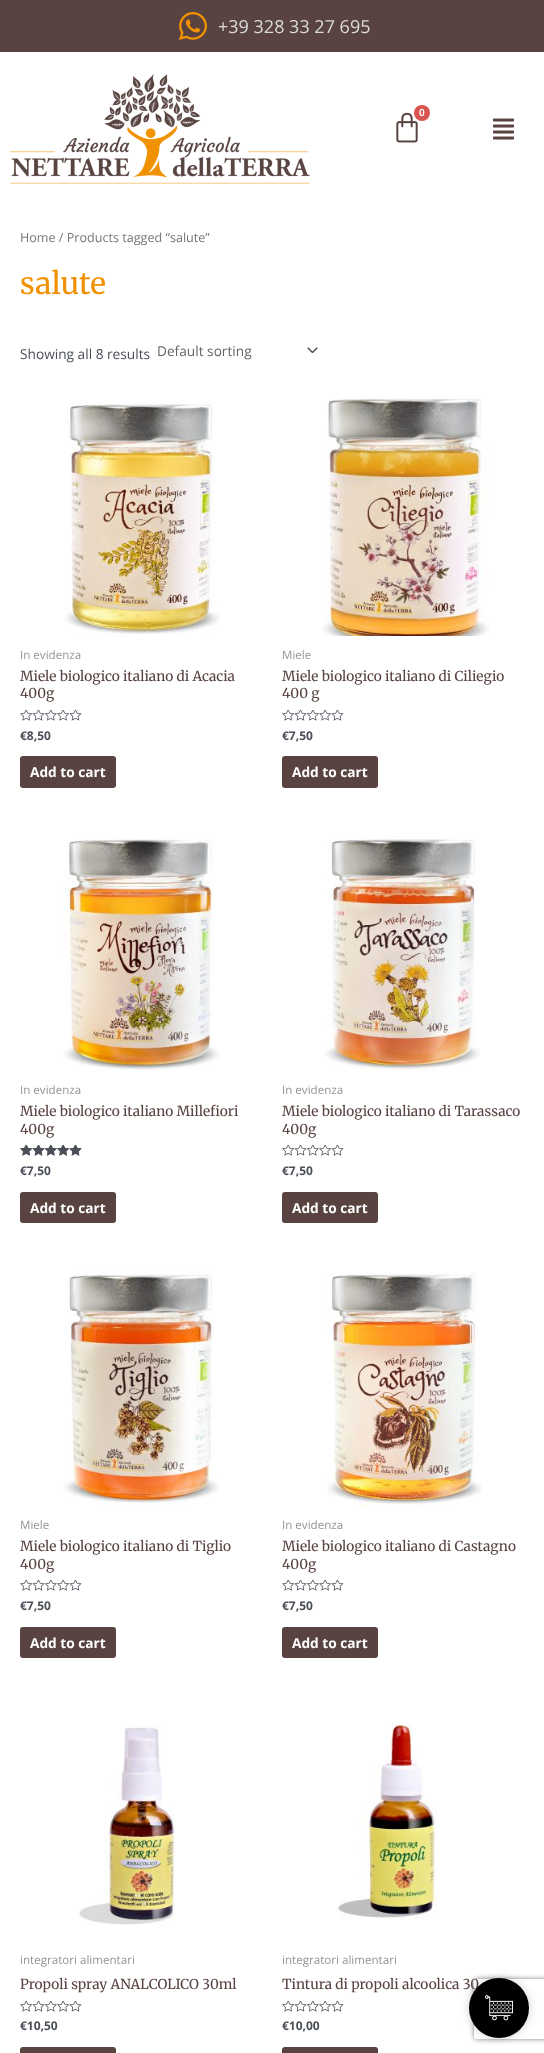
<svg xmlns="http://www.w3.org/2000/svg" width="544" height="2053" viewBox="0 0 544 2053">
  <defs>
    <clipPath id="clip1"><path d="M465 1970H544V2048H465ZM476 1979H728C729 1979 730 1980 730 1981V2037C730 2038 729 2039 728 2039H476C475 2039 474 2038 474 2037V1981C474 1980 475 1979 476 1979Z" clip-rule="evenodd"/></clipPath>
  </defs>
  <rect width="100%" height="100%" fill="rgb(255,255,255)"/>
  <rect x="0" y="0" width="544" height="52" fill="rgb(88,67,64)"/>
  <image x="179" y="12" width="28" height="28" href="pic1.png"/>
  <text x="218" y="33" font-family="Open Sans" font-size="18" fill="rgb(218,218,218)">+39 328 33 27 695</text>
  <image x="10" y="74" width="300" height="110" href="pic2.png"/>
  <image x="396" y="112" width="22" height="31" href="pic3.png"/>
  <circle cx="422" cy="113" r="8" fill="rgb(217,83,79)"/>
  <text x="419" y="116" font-family="Roboto" font-size="10" font-weight="600" fill="rgb(255,255,255)">0</text>
  <image x="493" y="118" width="21" height="22" href="pic4.png"/>
  <text x="20" y="242" font-family="Open Sans" font-size="12.6" fill="rgb(119,119,119)">Home / Products tagged “salute”</text>
  <text x="20" y="294" font-family="Merriweather" font-size="30" fill="rgb(242,145,0)">salute</text>
  <text x="20" y="359" font-family="Open Sans" font-size="13.7" fill="rgb(75,79,88)">Showing all 8 results</text>
  <image x="307" y="347" width="11" height="6" href="pic5.png"/>
  <text x="157" y="356" font-family="Open Sans" font-size="13.7" fill="rgb(102,102,102)">Default sorting</text>
  <image x="64" y="402" width="156" height="234" href="pic6.png"/>
  <text x="20" y="659" font-family="Open Sans" font-size="11.6" fill="rgb(147,149,155)">In evidenza</text>
  <g font-family="Merriweather" font-size="13.7" fill="rgb(88,67,64)">
    <text>
      <tspan x="20" y="681">Miele biologico italiano di Acacia</tspan>
      <tspan x="20" y="698">400g</tspan>
    </text>
  </g>
  <image x="20" y="710" width="62" height="11" href="pic7.png"/>
  <text x="20" y="740" font-family="Open Sans" font-size="12" font-weight="bold" fill="rgb(75,79,88)">€8,50</text>
  <rect x="20" y="756" width="96" height="32" rx="3" fill="rgb(88,67,64)"/>
  <text x="30" y="777" font-family="Open Sans" font-size="13.7" font-weight="bold" fill="rgb(255,255,255)">Add to cart</text>
  <image x="321" y="397" width="169" height="239" href="pic8.png"/>
  <text x="282" y="659" font-family="Open Sans" font-size="11.6" fill="rgb(147,149,155)">Miele</text>
  <g font-family="Merriweather" font-size="13.7" fill="rgb(88,67,64)">
    <text>
      <tspan x="282" y="681">Miele biologico italiano di Ciliegio</tspan>
      <tspan x="282" y="698">400 g</tspan>
    </text>
  </g>
  <image x="282" y="710" width="62" height="11" href="pic7.png"/>
  <text x="282" y="740" font-family="Open Sans" font-size="12" font-weight="bold" fill="rgb(75,79,88)">€7,50</text>
  <rect x="282" y="756" width="96" height="32" rx="3" fill="rgb(88,67,64)"/>
  <text x="292" y="777" font-family="Open Sans" font-size="13.7" font-weight="bold" fill="rgb(255,255,255)">Add to cart</text>
  <image x="59" y="838" width="161" height="233" href="pic9.png"/>
  <text x="20" y="1094" font-family="Open Sans" font-size="11.6" fill="rgb(147,149,155)">In evidenza</text>
  <g font-family="Merriweather" font-size="13.7" fill="rgb(88,67,64)">
    <text>
      <tspan x="20" y="1116">Miele biologico italiano Millefiori</tspan>
      <tspan x="20" y="1134">400g</tspan>
    </text>
  </g>
  <image x="20" y="1145" width="62" height="11" href="pic7.png"/>
  <image x="20" y="1145" width="62" height="11" href="pic10.png"/>
  <text x="20" y="1175" font-family="Open Sans" font-size="12" font-weight="bold" fill="rgb(75,79,88)">€7,50</text>
  <rect x="20" y="1192" width="96" height="31" rx="3" fill="rgb(88,67,64)"/>
  <text x="30" y="1213" font-family="Open Sans" font-size="13.7" font-weight="bold" fill="rgb(255,255,255)">Add to cart</text>
  <image x="324" y="836" width="156" height="235" href="pic11.png"/>
  <text x="282" y="1094" font-family="Open Sans" font-size="11.6" fill="rgb(147,149,155)">In evidenza</text>
  <g font-family="Merriweather" font-size="13.7" fill="rgb(88,67,64)">
    <text>
      <tspan x="282" y="1116">Miele biologico italiano di Tarassaco</tspan>
      <tspan x="282" y="1134">400g</tspan>
    </text>
  </g>
  <image x="282" y="1145" width="62" height="11" href="pic7.png"/>
  <text x="282" y="1175" font-family="Open Sans" font-size="12" font-weight="bold" fill="rgb(75,79,88)">€7,50</text>
  <rect x="282" y="1192" width="96" height="31" rx="3" fill="rgb(88,67,64)"/>
  <text x="292" y="1213" font-family="Open Sans" font-size="13.7" font-weight="bold" fill="rgb(255,255,255)">Add to cart</text>
  <image x="63" y="1271" width="156" height="235" href="pic12.png"/>
  <text x="20" y="1529" font-family="Open Sans" font-size="11.6" fill="rgb(147,149,155)">Miele</text>
  <g font-family="Merriweather" font-size="13.7" fill="rgb(88,67,64)">
    <text>
      <tspan x="20" y="1551">Miele biologico italiano di Tiglio</tspan>
      <tspan x="20" y="1569">400g</tspan>
    </text>
  </g>
  <image x="20" y="1580" width="62" height="11" href="pic7.png"/>
  <text x="20" y="1610" font-family="Open Sans" font-size="12" font-weight="bold" fill="rgb(75,79,88)">€7,50</text>
  <rect x="20" y="1627" width="96" height="31" rx="3" fill="rgb(88,67,64)"/>
  <text x="30" y="1648" font-family="Open Sans" font-size="13.7" font-weight="bold" fill="rgb(255,255,255)">Add to cart</text>
  <image x="327" y="1272" width="155" height="234" href="pic13.png"/>
  <text x="282" y="1529" font-family="Open Sans" font-size="11.6" fill="rgb(147,149,155)">In evidenza</text>
  <g font-family="Merriweather" font-size="13.7" fill="rgb(88,67,64)">
    <text>
      <tspan x="282" y="1551">Miele biologico italiano di Castagno</tspan>
      <tspan x="282" y="1569">400g</tspan>
    </text>
  </g>
  <image x="282" y="1580" width="62" height="11" href="pic7.png"/>
  <text x="282" y="1610" font-family="Open Sans" font-size="12" font-weight="bold" fill="rgb(75,79,88)">€7,50</text>
  <rect x="282" y="1627" width="96" height="31" rx="3" fill="rgb(88,67,64)"/>
  <text x="292" y="1648" font-family="Open Sans" font-size="13.7" font-weight="bold" fill="rgb(255,255,255)">Add to cart</text>
  <image x="78" y="1725" width="97" height="200" href="pic14.png"/>
  <text x="20" y="1964" font-family="Open Sans" font-size="11.6" fill="rgb(147,149,155)">integratori alimentari</text>
  <text x="20" y="1989" font-family="Merriweather" font-size="13.7" fill="rgb(88,67,64)">Propoli spray ANALCOLICO 30ml</text>
  <image x="20" y="2001" width="62" height="11" href="pic7.png"/>
  <text x="20" y="2030" font-family="Open Sans" font-size="12" font-weight="bold" fill="rgb(75,79,88)">€10,50</text>
  <rect x="20" y="2047" width="96" height="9" rx="3" fill="rgb(88,67,64)"/>
  <image x="336" y="1724" width="101" height="195" href="pic15.png"/>
  <text x="282" y="1964" font-family="Open Sans" font-size="11.6" fill="rgb(147,149,155)">integratori alimentari</text>
  <text x="282" y="1989" font-family="Merriweather" font-size="13.7" fill="rgb(88,67,64)">Tintura di propoli alcoolica 30</text>
  <image x="282" y="2001" width="62" height="11" href="pic7.png"/>
  <text x="282" y="2030" font-family="Open Sans" font-size="12" font-weight="bold" fill="rgb(75,79,88)">€10,00</text>
  <rect x="282" y="2047" width="96" height="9" rx="3" fill="rgb(88,67,64)"/>
  <rect x="469" y="1978" width="60" height="60" rx="30" fill="rgba(0,0,0,0.19)" filter="blur(5px)"/>
  <g clip-path="url(#clip1)">
    <rect x="474" y="1979" width="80" height="60" rx="2" fill="rgb(128,128,128)" filter="blur(2.5px)"/>
  </g>
  <circle cx="499" cy="2008" r="30" fill="rgb(0,0,0)"/>
  <image x="485" y="1995" width="28" height="26" href="pic16.png"/>
</svg>
